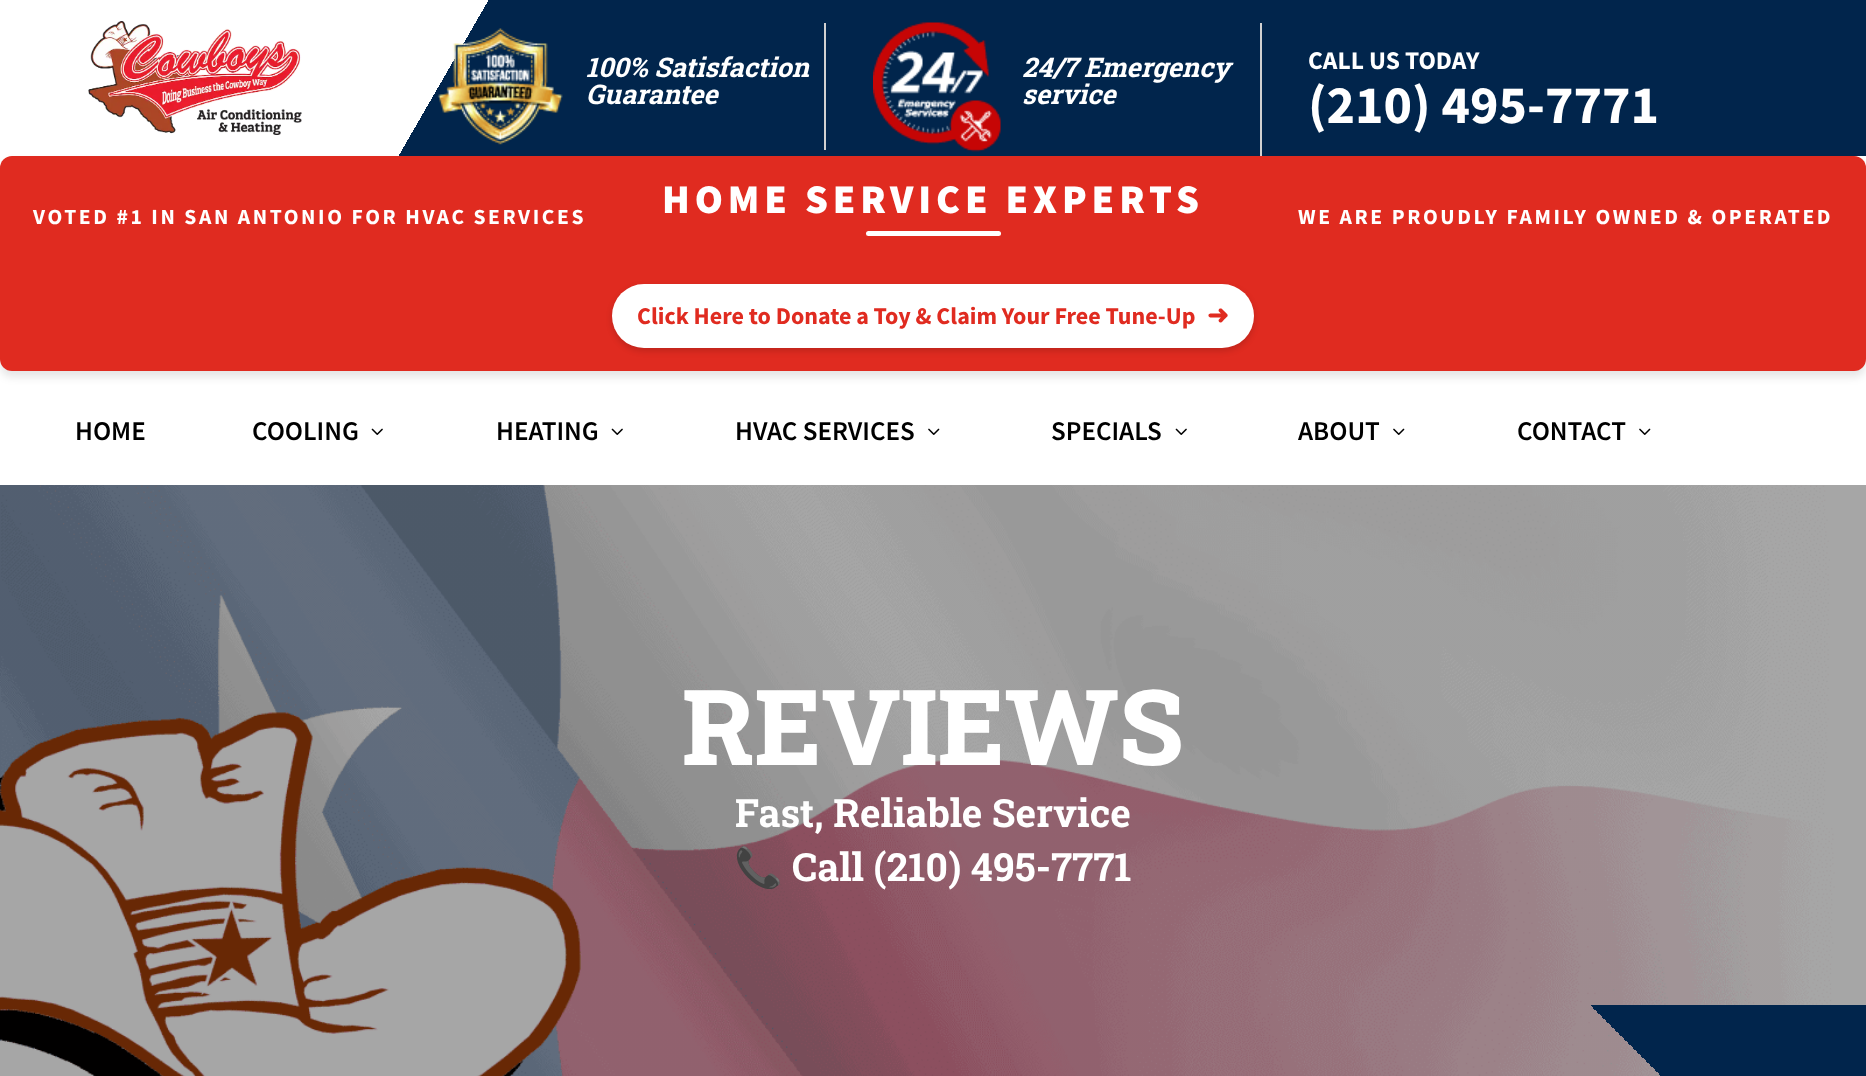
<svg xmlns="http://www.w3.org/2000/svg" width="1866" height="1076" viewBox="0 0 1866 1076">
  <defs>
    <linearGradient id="g1" gradientUnits="userSpaceOnUse" x1="199" y1="-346" x2="1667" y2="502"><stop offset="0.25" stop-color="rgb(255,255,255)"/><stop offset="0.25" stop-color="rgb(1,37,76)"/></linearGradient>
  </defs>
  <rect width="100%" height="100%" fill="rgb(255,255,255)"/>
  <rect x="0" y="162" width="1866" height="215" rx="12" fill="rgba(0,0,0,0.1)" filter="blur(4.5px)"/>
  <rect x="399" y="0" width="1467" height="156" fill="url(#g1)"/>
  <image x="88" y="21" width="214" height="114" href="pic1.png"/>
  <rect x="824" y="23" width="2" height="127" fill="rgb(209,209,209)"/>
  <image x="437" y="28" width="126" height="117" href="pic2.png"/>
  <g font-family="Roboto Slab" font-size="27" font-weight="bold" font-style="italic" fill="rgb(255,255,255)">
    <text>
      <tspan x="586" y="77">100% Satisfaction</tspan>
      <tspan x="586" y="104">Guarantee</tspan>
    </text>
  </g>
  <rect x="1260" y="23" width="2" height="133" fill="rgb(209,209,209)"/>
  <image x="873" y="22" width="128" height="130" href="pic3.png"/>
  <g font-family="Roboto Slab" font-size="27" font-weight="bold" font-style="italic" fill="rgb(255,255,255)">
    <text>
      <tspan x="1022" y="77">24/7 Emergency</tspan>
      <tspan x="1022" y="104">service</tspan>
    </text>
  </g>
  <text x="1308" y="69" font-family="Source Sans Pro" font-size="25.5" font-weight="bold" fill="rgb(255,255,255)">CALL US TODAY</text>
  <text x="1308" y="123" font-family="Source Sans Pro" font-size="54" font-weight="bold" fill="rgb(255,255,255)">(210) 495-7771</text>
  <rect x="0" y="156" width="1866" height="215" rx="12" fill="rgb(224,43,32)"/>
  <text x="662" y="213" font-family="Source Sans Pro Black" font-size="40.75" font-weight="900" letter-spacing="4.9" fill="rgb(255,255,255)">HOME SERVICE EXPERTS</text>
  <rect x="866" y="231" width="135" height="5" rx="2.5" fill="rgb(255,255,255)"/>
  <g font-family="Source Sans Pro" font-size="21.6" font-weight="bold" letter-spacing="2.6" fill="rgb(255,255,255)">
    <text x="33" y="224">VOTED #1 IN SAN ANTONIO FOR HVAC SERVICES</text>
    <text x="1298" y="224">WE ARE PROUDLY FAMILY OWNED &amp; OPERATED</text>
  </g>
  <rect x="612" y="287" width="642" height="64" rx="32" fill="rgba(0,0,0,0.15)" filter="blur(3px)"/>
  <rect x="612" y="284" width="642" height="64" rx="32" fill="rgb(255,255,255)"/>
  <text x="637" y="324" font-family="Source Sans Pro" font-size="24" font-weight="bold" fill="rgb(224,43,32)">Click Here to Donate a Toy &amp; Claim Your Free Tune-Up</text>
  <text x="1207" y="324" font-family="DejaVu Sans" font-size="26" font-weight="bold" fill="rgb(224,43,32)">➜</text>
  <g font-family="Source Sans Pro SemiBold" font-size="27" font-weight="600" fill="rgb(0,0,0)">
    <text x="75" y="440">HOME</text>
    <text x="252" y="440">COOLING</text>
  </g>
  <image x="371" y="428" width="12" height="7" href="pic4.png"/>
  <text x="496" y="440" font-family="Source Sans Pro SemiBold" font-size="27" font-weight="600" fill="rgb(0,0,0)">HEATING</text>
  <image x="611" y="428" width="12" height="7" href="pic4.png"/>
  <text x="735" y="440" font-family="Source Sans Pro SemiBold" font-size="27" font-weight="600" fill="rgb(0,0,0)">HVAC SERVICES</text>
  <image x="928" y="428" width="12" height="7" href="pic5.png"/>
  <text x="1051" y="440" font-family="Source Sans Pro SemiBold" font-size="27" font-weight="600" fill="rgb(0,0,0)">SPECIALS</text>
  <image x="1175" y="428" width="12" height="7" href="pic4.png"/>
  <text x="1298" y="440" font-family="Source Sans Pro SemiBold" font-size="27" font-weight="600" fill="rgb(0,0,0)">ABOUT</text>
  <image x="1393" y="428" width="12" height="7" href="pic5.png"/>
  <text x="1517" y="440" font-family="Source Sans Pro SemiBold" font-size="27" font-weight="600" fill="rgb(0,0,0)">CONTACT</text>
  <image x="1639" y="428" width="12" height="7" href="pic5.png"/>
  <image x="0" y="485" width="1866" height="591" href="pic6.png"/>
  <text x="682" y="765" font-family="Roboto Slab" font-size="105" font-weight="800" fill="rgb(255,255,255)">REVIEWS</text>
  <text x="735" y="827" font-family="Roboto Slab" font-size="39" font-weight="bold" fill="rgb(255,255,255)">Fast, Reliable Service</text>
  <text x="734" y="881" font-family="Noto Color Emoji" font-size="39" font-weight="bold" fill="rgb(255,255,255)">📞</text>
  <text x="792" y="881" font-family="Roboto Slab" font-size="39" font-weight="bold" fill="rgb(255,255,255)">Call (210) 495-7771</text>
</svg>
